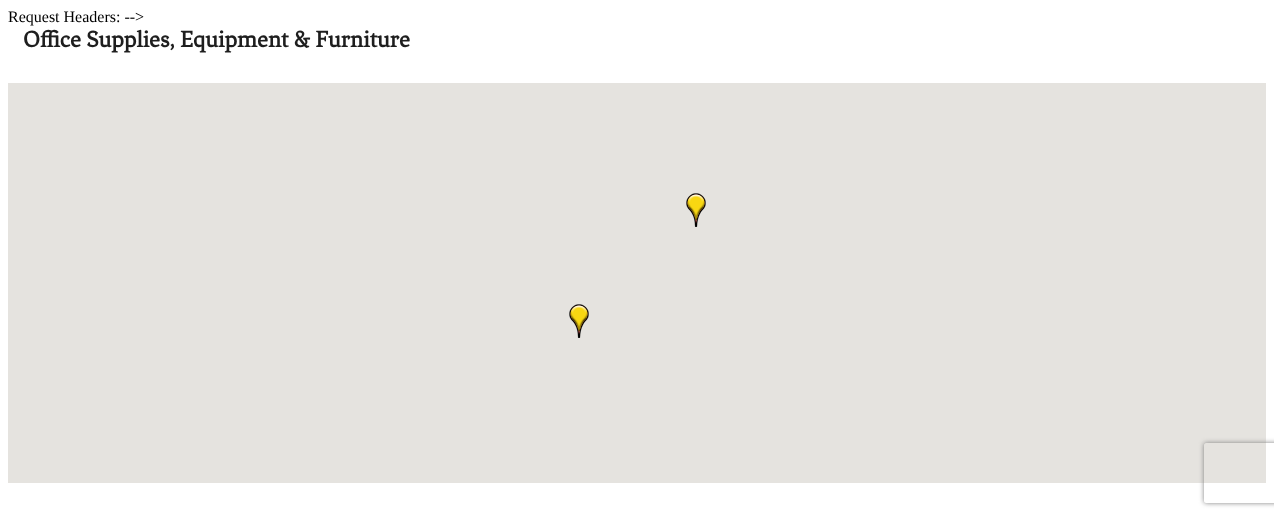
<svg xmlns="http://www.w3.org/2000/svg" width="1274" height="517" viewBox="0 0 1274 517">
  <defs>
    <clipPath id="clip1"><path d="M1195 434H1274V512H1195ZM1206 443H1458C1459 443 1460 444 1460 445V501C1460 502 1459 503 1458 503H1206C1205 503 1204 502 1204 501V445C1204 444 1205 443 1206 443Z" clip-rule="evenodd"/></clipPath>
  </defs>
  <rect width="100%" height="100%" fill="rgb(255,255,255)"/>
  <text x="8" y="22" font-family="Liberation Serif" font-size="16" fill="rgb(0,0,0)">Request Headers: --&gt;</text>
  <text x="23" y="47" font-family="Fenix" font-size="24" font-weight="bold" fill="rgb(30,30,30)">Office Supplies, Equipment &amp; Furniture</text>
  <rect x="8" y="83" width="1258" height="400" fill="rgb(229,227,223)"/>
  <image x="686" y="193" width="20" height="34" href="pic1.png"/>
  <image x="569" y="304" width="20" height="34" href="pic1.png"/>
  <g clip-path="url(#clip1)">
    <rect x="1204" y="443" width="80" height="60" rx="2" fill="rgb(128,128,128)" filter="blur(2.5px)"/>
  </g>
</svg>
